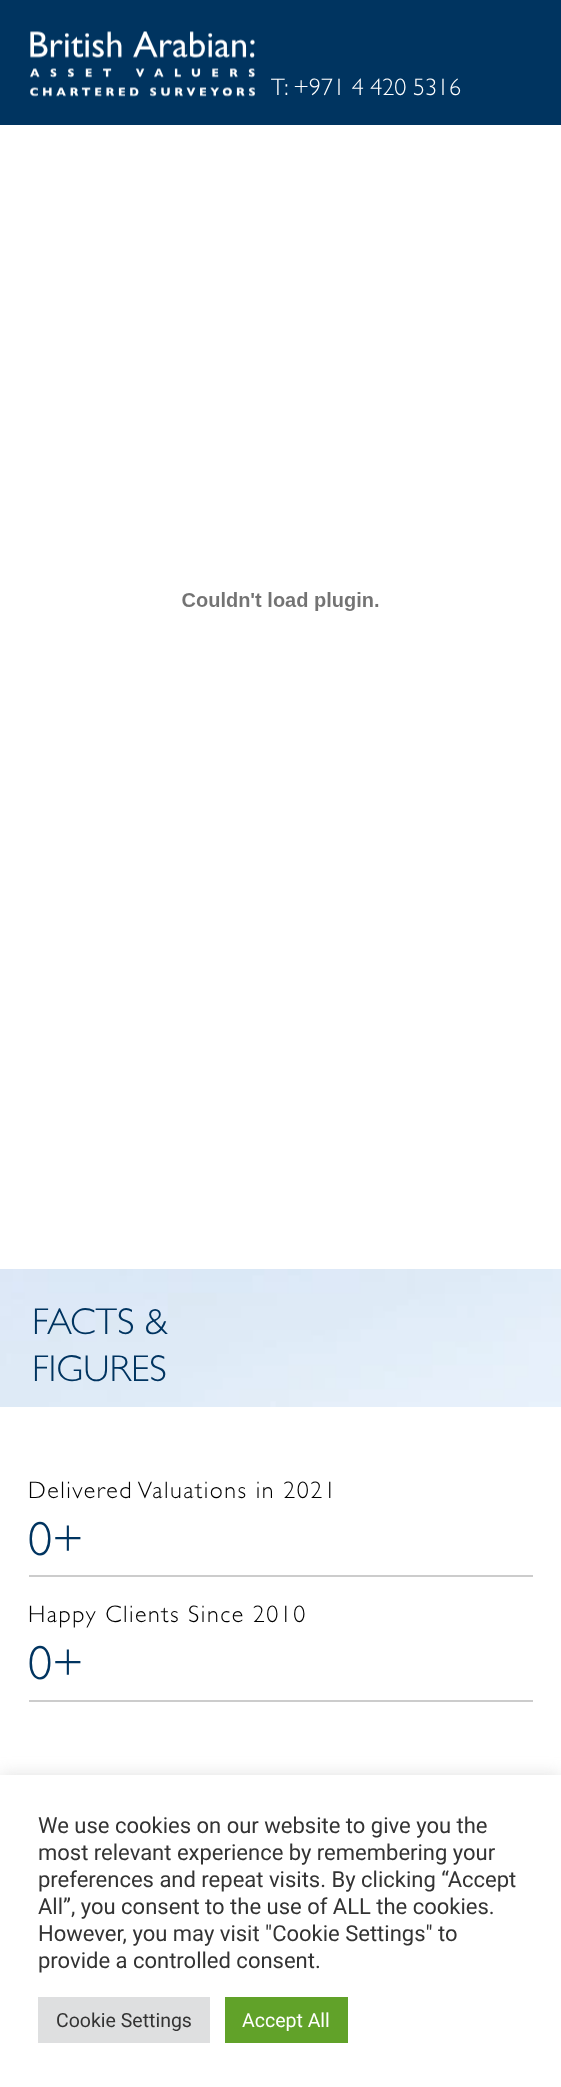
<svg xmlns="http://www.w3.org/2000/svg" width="561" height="2087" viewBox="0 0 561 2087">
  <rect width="100%" height="100%" fill="rgb(255,255,255)"/>
  <rect x="0" y="0" width="561" height="125" fill="rgb(0,52,96)"/>
  <image x="30" y="31" width="225" height="66" href="pic1.png"/>
  <text x="271" y="95" font-family="Gill Sans" font-size="24" font-weight="300" fill="rgb(255,255,255)">T: +971 4 420 5316</text>
  <image x="182" y="592" width="197" height="19" href="pic2.png"/>
  <image x="0" y="1269" width="561" height="138" href="pic3.png"/>
  <g font-family="Gill Sans" font-size="37.5" font-weight="300" fill="rgb(0,52,96)">
    <text>
      <tspan x="32" y="1334">FACTS &amp;</tspan>
      <tspan x="32" y="1381">FIGURES</tspan>
    </text>
  </g>
  <rect x="29" y="1575" width="504" height="2" fill="rgb(204,204,204)"/>
  <text x="28" y="1498" font-family="Gill Sans" font-size="24" font-weight="300" letter-spacing="1.5" fill="rgb(0,0,0)">Delivered Valuations in 2021</text>
  <text x="28" y="1555" font-family="Gill Sans" font-size="48" font-weight="300" fill="rgb(0,52,96)">0+</text>
  <rect x="29" y="1700" width="504" height="2" fill="rgb(204,204,204)"/>
  <text x="28" y="1622" font-family="Gill Sans" font-size="24" font-weight="300" letter-spacing="1.5" fill="rgb(0,0,0)">Happy Clients Since 2010</text>
  <text x="28" y="1679" font-family="Gill Sans" font-size="48" font-weight="300" fill="rgb(0,52,96)">0+</text>
  <rect x="0" y="1773" width="561" height="314" fill="rgba(172,171,171,0.3)" filter="blur(7.5px)"/>
  <rect x="0" y="1775" width="561" height="312" fill="rgb(255,255,255)"/>
  <g font-family="Roboto" font-size="22" fill="rgb(51,51,51)">
    <text>
      <tspan x="38" y="1833">We use cookies on our website to give you the</tspan>
      <tspan x="38" y="1860">most relevant experience by remembering your</tspan>
      <tspan x="38" y="1887">preferences and repeat visits. By clicking “Accept</tspan>
      <tspan x="38" y="1914">All”, you consent to the use of ALL the cookies.</tspan>
      <tspan x="38" y="1941">However, you may visit "Cookie Settings" to</tspan>
      <tspan x="38" y="1968">provide a controlled consent.</tspan>
    </text>
  </g>
  <rect x="38" y="1997" width="172" height="46" fill="rgb(222,223,224)"/>
  <text x="56" y="2027" font-family="Roboto" font-size="19.5" fill="rgb(51,51,51)">Cookie Settings</text>
  <rect x="225" y="1997" width="123" height="46" fill="rgb(97,162,41)"/>
  <text x="242" y="2027" font-family="Roboto" font-size="19.5" fill="rgb(255,255,255)">Accept All</text>
</svg>
